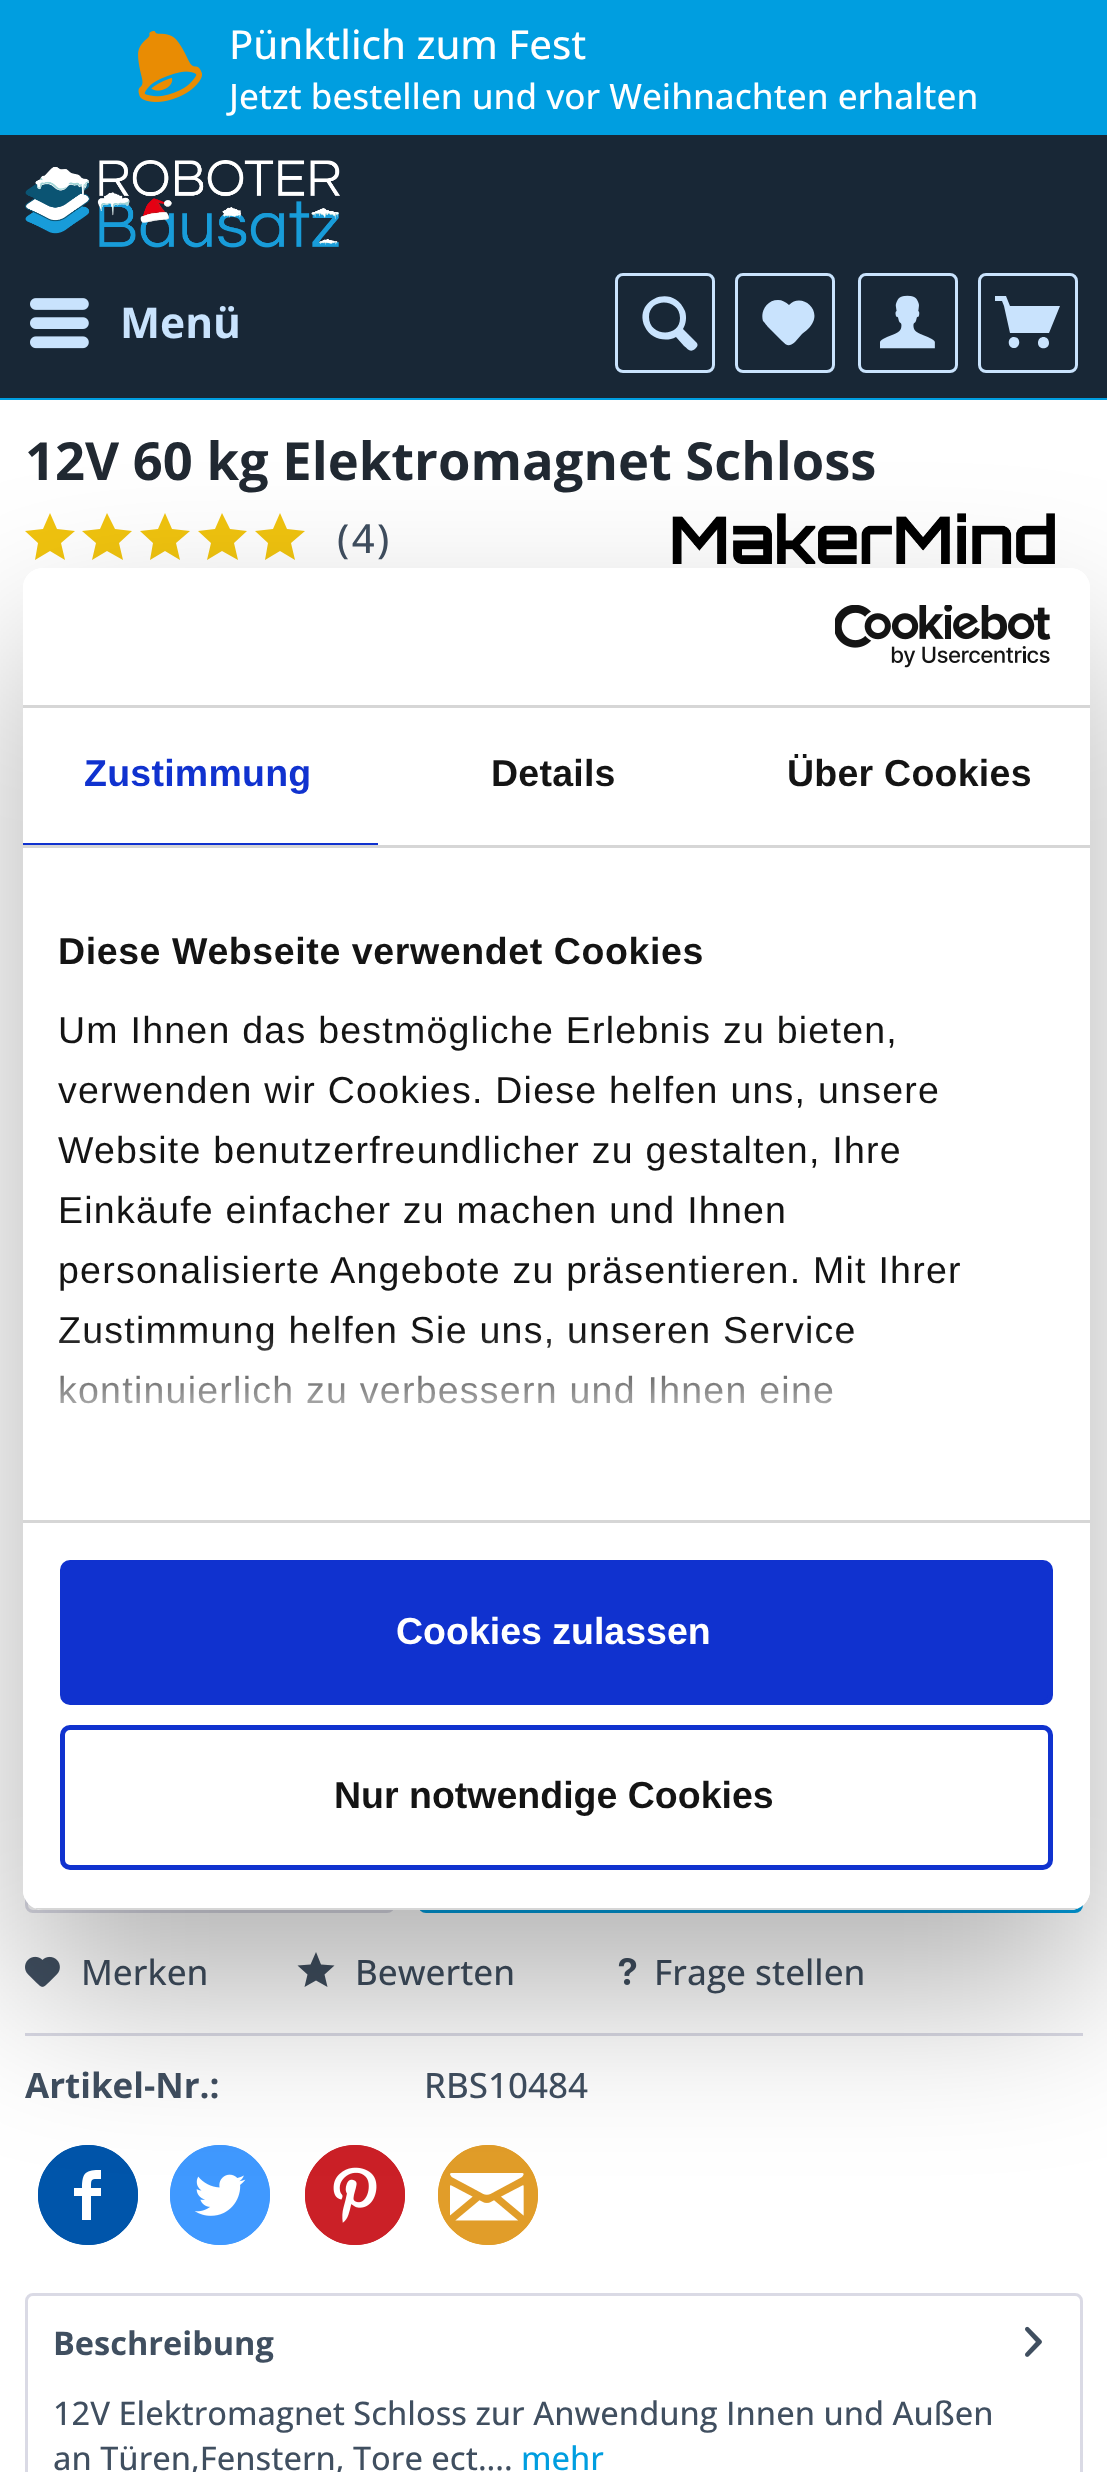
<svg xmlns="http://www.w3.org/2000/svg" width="1107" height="2472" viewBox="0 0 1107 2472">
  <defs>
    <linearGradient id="g1" gradientUnits="userSpaceOnUse" x1="210" y1="1810" x2="210" y2="1910"><stop offset="0" stop-color="rgb(255,255,255)"/><stop offset="1" stop-color="rgb(248,248,250)"/></linearGradient>
    <linearGradient id="g2" gradientUnits="userSpaceOnUse" x1="750" y1="1808" x2="750" y2="1913"><stop offset="0" stop-color="rgb(30,189,255)"/><stop offset="1" stop-color="rgb(0,158,224)"/></linearGradient>
    <clipPath id="clip1"><path d="M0 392H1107V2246H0ZM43 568H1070C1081 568 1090 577 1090 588V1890C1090 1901 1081 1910 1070 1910H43C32 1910 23 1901 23 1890V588C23 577 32 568 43 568Z" clip-rule="evenodd"/></clipPath>
    <linearGradient id="g3" gradientUnits="userSpaceOnUse" x1="539" y1="1519" x2="539" y2="1331"><stop offset="0" stop-color="rgb(255,255,255)"/><stop offset="0.5" stop-color="rgb(255,255,255)" stop-opacity="0.8"/><stop offset="1" stop-color="rgb(255,255,255)" stop-opacity="0"/></linearGradient>
    <clipPath id="clip2"><rect x="23" y="568" width="1067" height="1342" rx="20"/></clipPath>
  </defs>
  <rect width="100%" height="100%" fill="rgb(24,39,54)"/>
  <rect x="0" y="398" width="1107" height="2" fill="rgb(0,158,224)"/>
  <rect x="0" y="0" width="1107" height="135" fill="rgb(0,158,224)"/>
  <image x="138" y="31" width="64" height="71" href="pic1.png"/>
  <text x="229" y="59" font-family="Open Sans" font-size="40" font-weight="500" fill="rgb(255,255,255)">Pünktlich zum Fest</text>
  <text x="229" y="109" font-family="Open Sans" font-size="35" font-weight="500" fill="rgb(255,255,255)">Jetzt bestellen und vor Weihnachten erhalten</text>
  <image x="25" y="160" width="315" height="88" href="pic2.png"/>
  <image x="30" y="298" width="59" height="51" href="pic3.png"/>
  <text x="120" y="338" font-family="Open Sans" font-size="42.5" font-weight="bold" fill="rgb(201,227,253)">Menü</text>
  <rect x="616.5" y="274.5" width="97" height="97" rx="6.5" fill="none" stroke="rgb(201,227,253)" stroke-width="3"/>
  <path d="M696 342L683 329C686 324 687 317 685 311C673 282 632 300 645 327C650 338 665 343 676 337L684 346C688 349 690 353 695 349C697 347 699 345 696 342ZM649 317C649 297 680 298 680 318C680 338 649 337 649 317Z" fill="rgb(201,227,253)"/>
  <rect x="736.5" y="274.5" width="97" height="97" rx="6.5" fill="none" stroke="rgb(201,227,253)" stroke-width="3"/>
  <path d="M778 300C767 300 760 311 763 321C764 322 768 327 768 327L782 341C787 346 789 347 795 342L802 334C806 331 811 327 813 322C820 307 800 293 789 305C786 302 782 300 778 300Z" fill="rgb(201,227,253)"/>
  <rect x="859.5" y="274.5" width="97" height="97" rx="6.5" fill="none" stroke="rgb(201,227,253)" stroke-width="3"/>
  <image x="880" y="295" width="55" height="54" href="pic4.png"/>
  <rect x="979.5" y="274.5" width="97" height="97" rx="6.5" fill="none" stroke="rgb(201,227,253)" stroke-width="3"/>
  <path d="M1010 333H1049L1060 306H1010L1006 296H995V301H1002L1004 306ZM1014 337C1007 337 1007 348 1014 348C1021 348 1021 337 1014 337ZM1049 343C1049 350 1038 350 1038 343C1038 335 1049 335 1049 343Z" fill="rgb(201,227,253)"/>
  <rect x="0" y="400" width="1107" height="2072" fill="rgb(255,255,255)"/>
  <text x="25" y="480" font-family="Open Sans" font-size="52.5" font-weight="bold" fill="rgb(33,41,50)">12V 60 kg Elektromagnet Schloss</text>
  <path d="M50 513L43 529L25 531L38 543L35 560L50 551L65 560L61 543L75 531L57 529Z" fill="rgb(241,196,15)"/>
  <path d="M107 513L100 529L82 531L96 543L92 560L107 551L123 560L119 543L132 531L115 529Z" fill="rgb(241,196,15)"/>
  <path d="M165 513L158 529L140 531L153 543L150 560L165 551L180 560L176 543L190 531L172 529Z" fill="rgb(241,196,15)"/>
  <path d="M222 513L215 529L198 531L211 543L207 560L222 551L238 560L234 543L247 531L230 529Z" fill="rgb(241,196,15)"/>
  <path d="M280 513L273 529L255 531L268 543L265 560L280 551L295 560L291 543L305 531L287 529Z" fill="rgb(241,196,15)"/>
  <text x="337" y="553" font-family="Open Sans" font-size="40" font-weight="500" letter-spacing="2.5" fill="rgb(64,79,96)">(4)</text>
  <image x="672" y="513" width="383" height="51" href="pic5.png"/>
  <rect x="28" y="1810" width="365" height="100" rx="5" fill="url(#g1)"/>
  <rect x="26.5" y="1809.5" width="367" height="102" rx="6.5" fill="none" stroke="rgb(218,218,229)" stroke-width="3"/>
  <rect x="418" y="1808" width="665" height="105" rx="8" fill="url(#g2)"/>
  <rect x="25" y="2033" width="1058" height="3" fill="rgb(218,218,229)"/>
  <image x="25" y="1956" width="35" height="31" href="pic6.png"/>
  <g font-family="Open Sans" font-size="35" font-weight="500" fill="rgb(64,79,96)">
    <text x="81" y="1985">Merken</text>
    <text x="355" y="1985">Bewerten</text>
  </g>
  <path d="M316 1952L310.5 1964.5L297.5 1965.5L307.5 1974.5L304.5 1987L316 1980.5L327.5 1987L324.5 1974.5L334.5 1965.5L321 1964.5Z" fill="rgb(64,79,96)"/>
  <image x="618" y="1958" width="19" height="27" href="pic7.png"/>
  <text x="654" y="1985" font-family="Open Sans" font-size="35" font-weight="500" fill="rgb(64,79,96)">Frage stellen</text>
  <text x="25" y="2098" font-family="Open Sans" font-size="35" font-weight="bold" fill="rgb(64,79,96)">Artikel-Nr.:</text>
  <text x="424" y="2098" font-family="Open Sans" font-size="35" font-weight="500" fill="rgb(64,79,96)">RBS10484</text>
  <circle cx="88" cy="2195" r="48.5" fill="none" stroke="rgb(0,85,170)" stroke-width="3"/>
  <circle cx="88" cy="2195" r="50" fill="rgb(0,85,170)"/>
  <path d="M101 2179C91 2179 91 2178 91 2188H101V2196H91V2220H82V2196H74V2188H82C82 2172 86 2170 101 2170Z" fill="rgb(255,255,255)"/>
  <circle cx="220" cy="2195" r="48.5" fill="none" stroke="rgb(64,153,255)" stroke-width="3"/>
  <circle cx="220" cy="2195" r="50" fill="rgb(64,153,255)"/>
  <image x="194" y="2174" width="52" height="42" href="pic8.png"/>
  <circle cx="355" cy="2195" r="48.5" fill="none" stroke="rgb(203,32,39)" stroke-width="3"/>
  <circle cx="355" cy="2195" r="50" fill="rgb(203,32,39)"/>
  <image x="333" y="2167" width="44" height="56" href="pic9.png"/>
  <circle cx="488" cy="2195" r="48.5" fill="none" stroke="rgb(225,157,41)" stroke-width="3"/>
  <circle cx="488" cy="2195" r="50" fill="rgb(225,157,41)"/>
  <image x="450" y="2173" width="74" height="48" href="pic10.png"/>
  <rect x="26.5" y="2294.5" width="1055" height="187" rx="6.5" fill="none" stroke="rgb(218,218,229)" stroke-width="3"/>
  <text x="53" y="2355" font-family="Open Sans" font-size="32.5" font-weight="bold" fill="rgb(64,79,96)">Beschreibung</text>
  <image x="1025" y="2326" width="17" height="31" href="pic11.png"/>
  <g font-family="Open Sans" font-size="32.5" font-weight="500" fill="rgb(64,79,96)">
    <text>
      <tspan x="53" y="2425">12V Elektromagnet Schloss zur Anwendung Innen und Außen</tspan>
      <tspan x="53" y="2470">an Türen,Fenstern, Tore ect....</tspan>
    </text>
  </g>
  <text x="521" y="2470" font-family="Open Sans" font-size="32.5" font-weight="500" fill="rgb(0,158,224)">mehr</text>
  <g clip-path="url(#clip1)">
    <rect x="23" y="648" width="1067" height="1342" rx="20" fill="rgba(0,0,0,0.3)" filter="blur(85px)"/>
  </g>
  <rect x="23" y="568" width="1067" height="1342" rx="20" fill="rgb(255,255,255)"/>
  <rect x="23" y="705" width="1067" height="3" fill="rgb(214,214,214)"/>
  <image x="835" y="605" width="216" height="63" href="pic12.png"/>
  <rect x="23" y="845" width="1067" height="3" fill="rgb(214,214,214)"/>
  <rect x="23" y="843" width="355" height="2" fill="rgb(16,50,207)"/>
  <text x="84" y="786" font-family="Liberation Sans" font-size="37.5" font-weight="bold" letter-spacing="0.25" fill="rgb(16,50,207)">Zustimmung</text>
  <g font-family="Liberation Sans" font-size="37.5" font-weight="bold" letter-spacing="0.25" fill="rgb(20,20,20)">
    <text x="491" y="786">Details</text>
    <text x="787" y="786">Über Cookies</text>
  </g>
  <rect x="23" y="1520" width="1067" height="3" fill="rgb(214,214,214)"/>
  <text x="58" y="964" font-family="Liberation Sans" font-size="37.5" font-weight="bold" letter-spacing="0.6" fill="rgb(20,20,20)">Diese Webseite verwendet Cookies</text>
  <g font-family="Liberation Sans" font-size="37.5" letter-spacing="1.25" fill="rgb(20,20,20)">
    <text>
      <tspan x="58" y="1043">Um Ihnen das bestmögliche Erlebnis zu bieten,</tspan>
      <tspan x="58" y="1103">verwenden wir Cookies. Diese helfen uns, unsere</tspan>
      <tspan x="58" y="1163">Website benutzerfreundlicher zu gestalten, Ihre</tspan>
      <tspan x="58" y="1223">Einkäufe einfacher zu machen und Ihnen</tspan>
      <tspan x="58" y="1283">personalisierte Angebote zu präsentieren. Mit Ihrer</tspan>
      <tspan x="58" y="1343">Zustimmung helfen Sie uns, unseren Service</tspan>
      <tspan x="58" y="1403">kontinuierlich zu verbessern und Ihnen eine</tspan>
    </text>
  </g>
  <rect x="58" y="1334" width="795" height="70" fill="url(#g3)"/>
  <g clip-path="url(#clip2)">
    <rect x="34" y="1908" width="1045" height="2" fill="rgb(214,214,214)"/>
  </g>
  <rect x="62.5" y="1562.5" width="988" height="140" rx="7.5" fill="rgb(16,50,207)" stroke="rgb(16,50,207)" stroke-width="5"/>
  <text x="396" y="1644" font-family="Liberation Sans" font-size="37.5" font-weight="bold" fill="rgb(255,255,255)">Cookies zulassen</text>
  <rect x="62.5" y="1727.5" width="988" height="140" rx="7.5" fill="none" stroke="rgb(16,50,207)" stroke-width="5"/>
  <text x="334" y="1808" font-family="Liberation Sans" font-size="37.5" font-weight="bold" fill="rgb(20,20,20)">Nur notwendige Cookies</text>
</svg>
